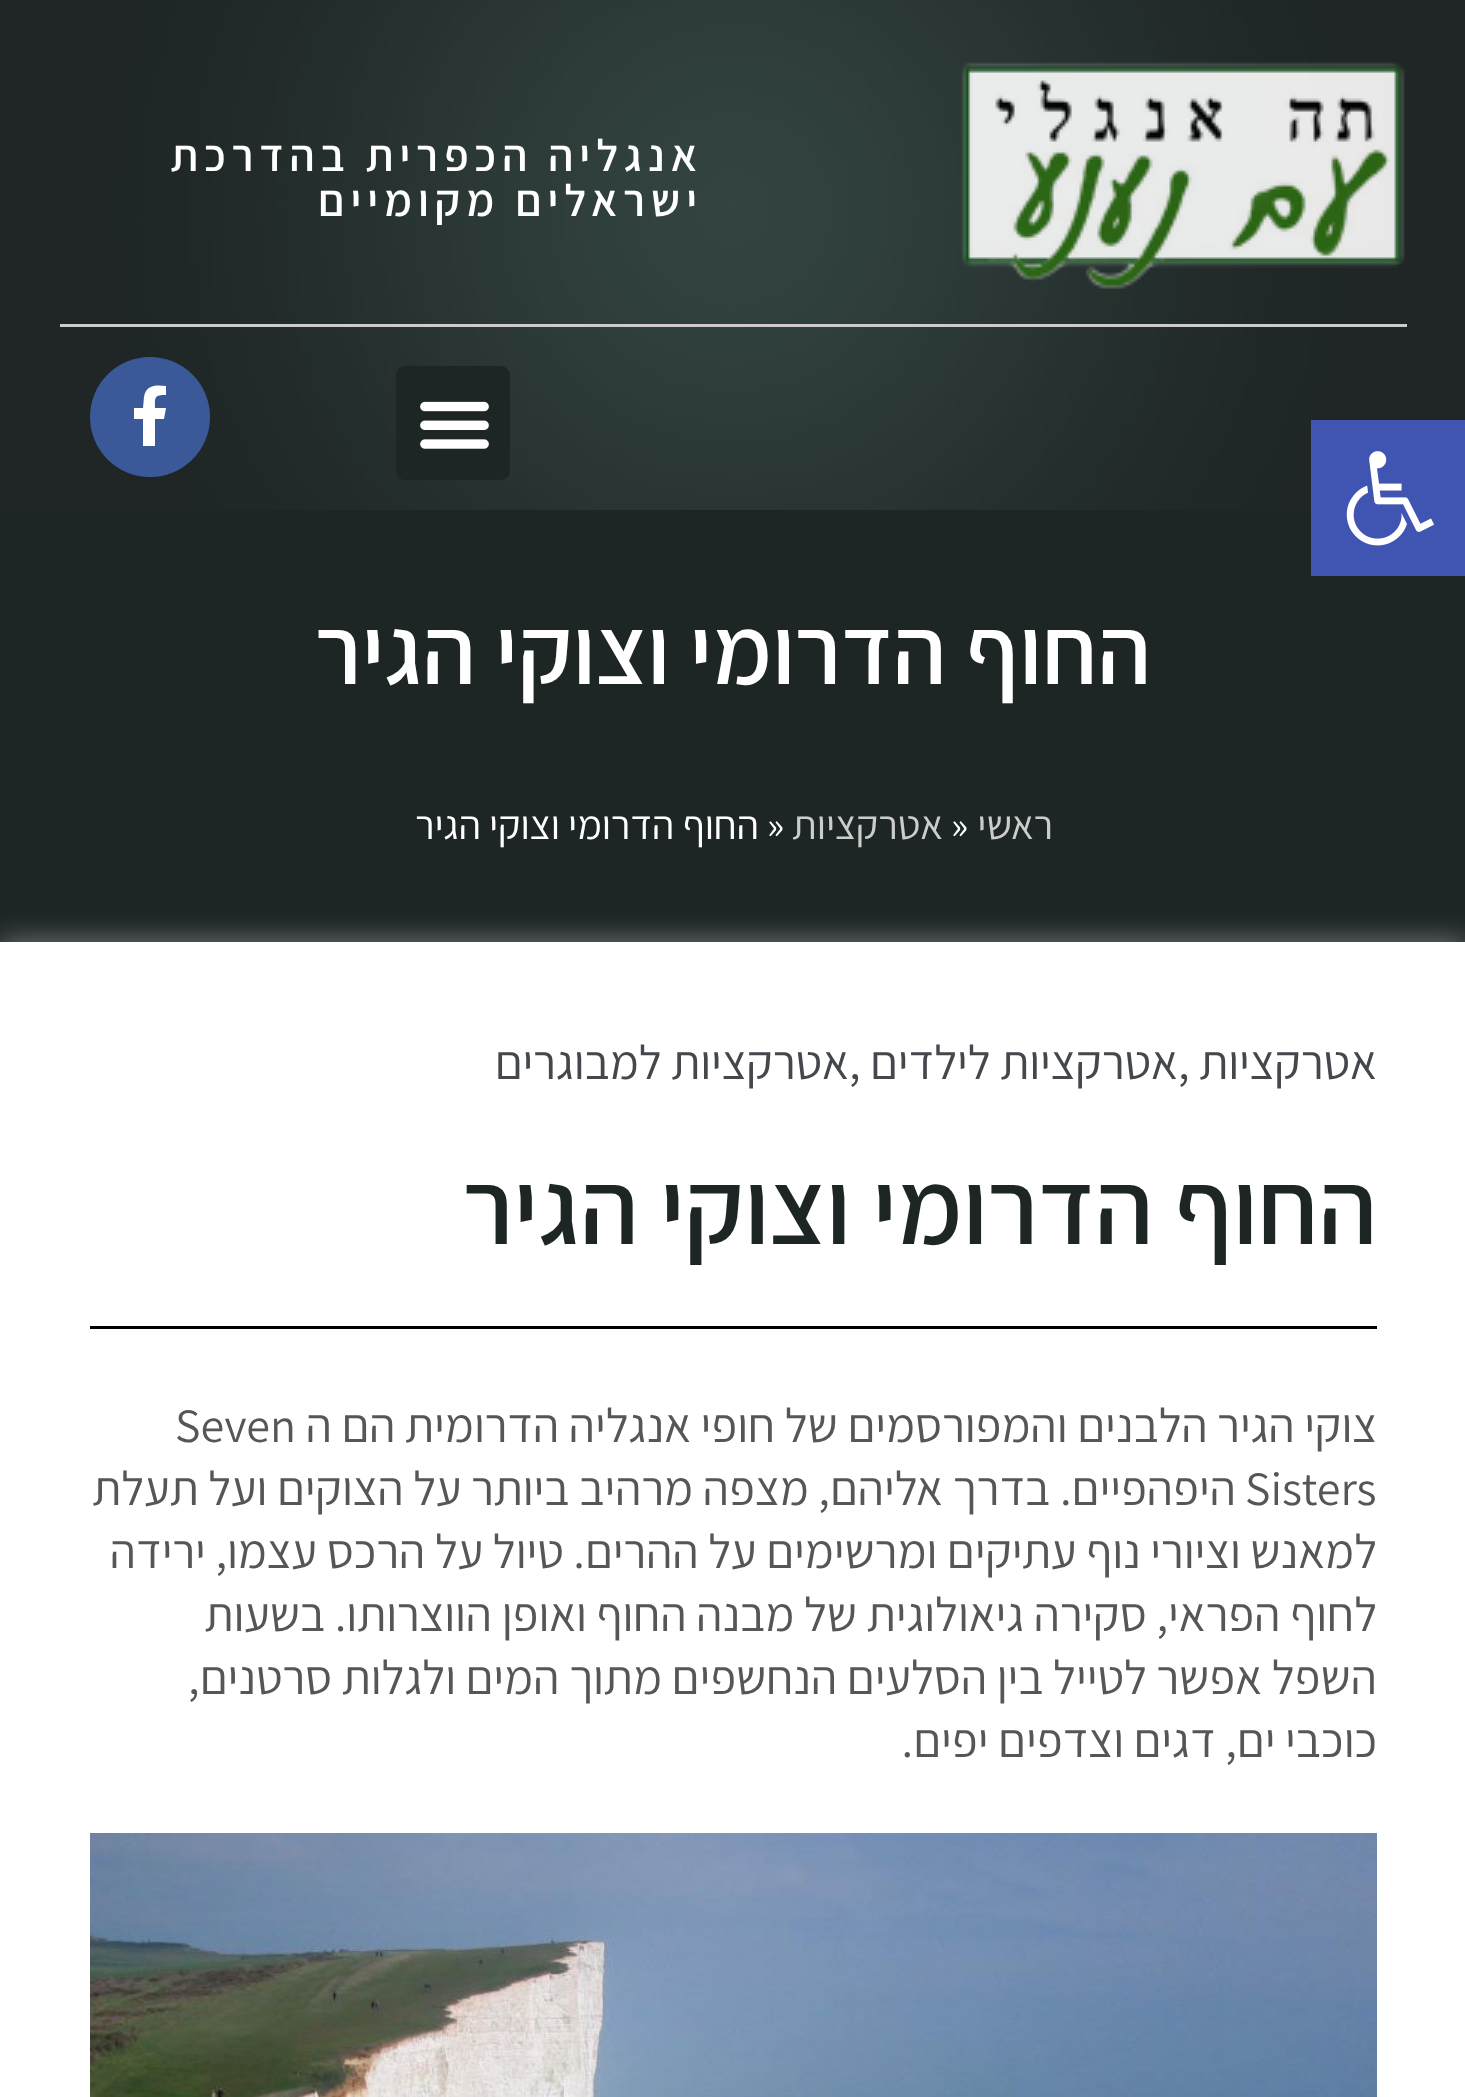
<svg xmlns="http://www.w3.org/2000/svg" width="1465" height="2097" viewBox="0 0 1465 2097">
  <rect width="100%" height="100%" fill="rgb(255,255,255)"/>
  <image x="0" y="0" width="1465" height="510" href="pic1.png"/>
  <image x="961" y="62" width="444" height="227" href="pic2.png"/>
  <g font-family="Assistant" font-size="45" font-weight="600" letter-spacing="6" direction="rtl" fill="rgb(255,255,255)">
    <text>
      <tspan x="703" y="171">אנגליה הכפרית בהדרכת</tspan>
      <tspan x="703" y="216">ישראלים מקומיים</tspan>
    </text>
  </g>
  <rect x="60" y="324" width="1347" height="3" fill="rgb(204,204,204)"/>
  <rect x="396" y="366" width="114" height="114" rx="9" fill="rgb(30,38,37)"/>
  <image x="420" y="401" width="69" height="48" href="pic3.png"/>
  <circle cx="150" cy="417" r="60" fill="rgb(59,89,152)"/>
  <path d="M164 419H155V446H143V419H134V408H143L144 397C146 384 157 385 166 386V395C154 395 155 397 155 408H166Z" fill="rgb(255,255,255)"/>
  <rect x="0" y="510" width="1465" height="432" fill="rgb(30,38,37)"/>
  <rect x="1311" y="420" width="154" height="156" fill="rgb(64,84,178)"/>
  <image x="1346" y="451" width="88" height="95" href="pic4.png"/>
  <text x="1151" y="684" font-family="Assistant" font-size="96" font-weight="600" direction="rtl" fill="rgb(255,255,255)">החוף הדרומי וצוקי הגיר</text>
  <text x="1053" y="839" font-family="Assistant" font-size="40.75" direction="rtl" fill="rgb(204,204,204)">ראשי</text>
  <text x="951" y="839" font-family="Assistant" font-size="40.75" fill="rgb(255,255,255)">»</text>
  <text x="943" y="839" font-family="Assistant" font-size="40.75" direction="rtl" fill="rgb(204,204,204)">אטרקציות</text>
  <text x="767" y="839" font-family="Assistant" font-size="40.75" fill="rgb(255,255,255)">»</text>
  <text x="759" y="839" font-family="Assistant" font-size="40.75" direction="rtl" fill="rgb(255,255,255)">החוף הדרומי וצוקי הגיר</text>
  <rect x="0" y="942" width="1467" height="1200" fill="rgba(214,214,214,0.5)" filter="blur(15px)"/>
  <rect x="0" y="942" width="1465" height="1155" fill="rgb(255,255,255)"/>
  <text x="1377" y="1079" font-family="Assistant" font-size="48" direction="rtl" fill="rgb(68,72,76)">אטרקציות</text>
  <text x="1178" y="1079" font-family="Assistant" font-size="48" fill="rgb(68,72,76)">,</text>
  <text x="1178" y="1079" font-family="Assistant" font-size="48" direction="rtl" fill="rgb(68,72,76)">אטרקציות לילדים</text>
  <text x="849" y="1079" font-family="Assistant" font-size="48" fill="rgb(68,72,76)">,</text>
  <text x="849" y="1079" font-family="Assistant" font-size="48" direction="rtl" fill="rgb(68,72,76)">אטרקציות למבוגרים</text>
  <text x="1377" y="1244" font-family="Assistant" font-size="105" font-weight="600" direction="rtl" fill="rgb(30,38,37)">החוף הדרומי וצוקי הגיר</text>
  <rect x="90" y="1326" width="1287" height="3" fill="rgb(0,0,0)"/>
  <text x="1377" y="1442" font-family="Assistant" font-size="48" direction="rtl" fill="rgb(86,86,86)">צוקי הגיר הלבנים והמפורסמים של חופי אנגליה הדרומית הם ה</text>
  <g font-family="Assistant" font-size="48" fill="rgb(86,86,86)">
    <text x="175" y="1442">Seven</text>
    <text x="1245" y="1505">Sisters</text>
  </g>
  <g font-family="Assistant" font-size="48" direction="rtl" fill="rgb(86,86,86)">
    <text x="1236" y="1505">היפהפיים. בדרך אליהם, מצפה מרהיב ביותר על הצוקים ועל תעלת</text>
    <text>
      <tspan x="1377" y="1568">למאנש וציורי נוף עתיקים ומרשימים על ההרים. טיול על הרכס עצמו, ירידה</tspan>
      <tspan x="1377" y="1631">לחוף הפראי, סקירה גיאולוגית של מבנה החוף ואופן הווצרותו. בשעות</tspan>
      <tspan x="1377" y="1694">השפל אפשר לטייל בין הסלעים הנחשפים מתוך המים ולגלות סרטנים,</tspan>
      <tspan x="1377" y="1757">כוכבי ים, דגים וצדפים יפים.</tspan>
    </text>
  </g>
  <image x="90" y="1833" width="1287" height="264" href="pic5.png"/>
</svg>
